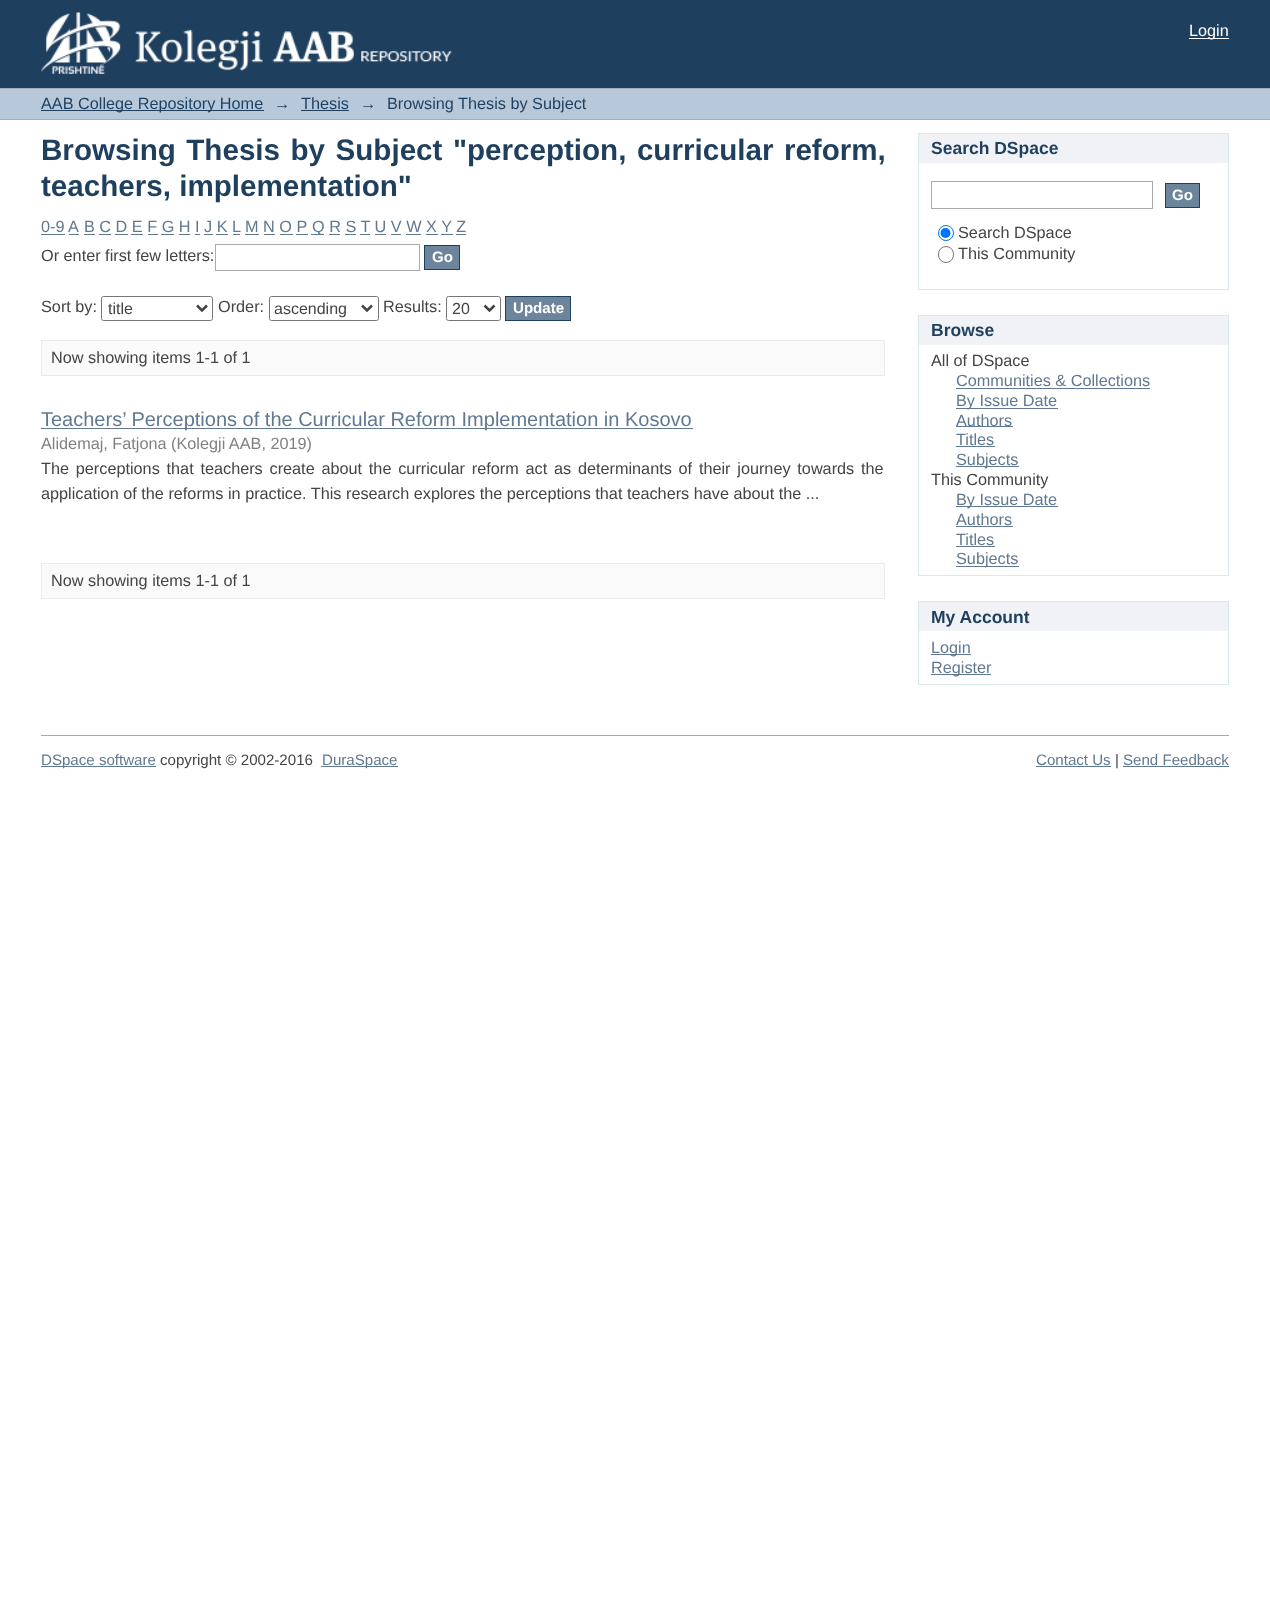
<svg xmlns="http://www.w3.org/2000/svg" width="1270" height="1604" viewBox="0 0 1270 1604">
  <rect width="100%" height="100%" fill="rgb(255,255,255)"/>
  <rect x="0" y="0" width="1270" height="88" fill="rgb(31,63,94)"/>
  <image x="41" y="12" width="411" height="62" href="pic1.png"/>
  <rect x="1189" y="38" width="40" height="1" fill="rgb(255,255,255)"/>
  <text x="1189" y="36" font-family="Liberation Sans" font-size="16.25" fill="rgb(255,255,255)">Login</text>
  <rect x="0" y="89" width="1270" height="30" fill="rgb(182,200,217)"/>
  <rect x="0" y="88" width="1270" height="1" fill="rgb(156,172,186)"/>
  <rect x="0" y="119" width="1270" height="1" fill="rgb(156,172,186)"/>
  <rect x="41" y="110" width="223" height="1" fill="rgb(31,63,94)"/>
  <g font-family="Liberation Sans" font-size="16.25" fill="rgb(31,63,94)">
    <text x="41" y="109">AAB College Repository Home</text>
    <text x="274" y="109">→</text>
    <text x="301" y="109">Thesis</text>
  </g>
  <rect x="301" y="110" width="48" height="1" fill="rgb(31,63,94)"/>
  <g font-family="Liberation Sans" font-size="16.25" fill="rgb(31,63,94)">
    <text x="360" y="109">→</text>
    <text x="387" y="109">Browsing Thesis by Subject</text>
  </g>
  <g font-family="Liberation Sans" font-size="29.6" font-weight="bold" fill="rgb(31,63,94)">
    <text>
      <tspan x="41" y="160" word-spacing="2.25">Browsing Thesis by Subject "perception, curricular reform,</tspan>
      <tspan x="41" y="196">teachers, implementation"</tspan>
    </text>
  </g>
  <text x="41" y="232" font-family="Liberation Sans" font-size="16.25" fill="rgb(96,120,144)">0-9 A</text>
  <rect x="41" y="234" width="24" height="1" fill="rgb(96,120,144)"/>
  <text x="84" y="232" font-family="Liberation Sans" font-size="16.25" fill="rgb(96,120,144)">B C D E F G H I J K L</text>
  <rect x="84" y="234" width="11" height="1" fill="rgb(96,120,144)"/>
  <text x="245" y="232" font-family="Liberation Sans" font-size="16.25" fill="rgb(96,120,144)">M N O P</text>
  <rect x="245" y="234" width="14" height="1" fill="rgb(96,120,144)"/>
  <rect x="311" y="234" width="13" height="1" fill="rgb(96,120,144)"/>
  <text x="312" y="232" font-family="Liberation Sans" font-size="16.25" fill="rgb(96,120,144)">Q R S T U V W X Y Z</text>
  <rect x="69" y="234" width="10" height="1" fill="rgb(96,120,144)"/>
  <rect x="99" y="234" width="12" height="1" fill="rgb(96,120,144)"/>
  <rect x="115" y="234" width="13" height="1" fill="rgb(96,120,144)"/>
  <rect x="131" y="234" width="12" height="1" fill="rgb(96,120,144)"/>
  <rect x="148" y="234" width="10" height="1" fill="rgb(96,120,144)"/>
  <rect x="161" y="234" width="13" height="1" fill="rgb(96,120,144)"/>
  <rect x="179" y="234" width="11" height="1" fill="rgb(96,120,144)"/>
  <rect x="195" y="234" width="5" height="1" fill="rgb(96,120,144)"/>
  <rect x="204" y="234" width="9" height="1" fill="rgb(96,120,144)"/>
  <rect x="216" y="234" width="12" height="1" fill="rgb(96,120,144)"/>
  <rect x="233" y="234" width="7" height="1" fill="rgb(96,120,144)"/>
  <rect x="264" y="234" width="11" height="1" fill="rgb(96,120,144)"/>
  <rect x="280" y="234" width="13" height="1" fill="rgb(96,120,144)"/>
  <rect x="296" y="234" width="12" height="1" fill="rgb(96,120,144)"/>
  <rect x="329" y="234" width="11" height="1" fill="rgb(96,120,144)"/>
  <rect x="345" y="234" width="11" height="1" fill="rgb(96,120,144)"/>
  <rect x="360" y="234" width="10" height="1" fill="rgb(96,120,144)"/>
  <rect x="375" y="234" width="11" height="1" fill="rgb(96,120,144)"/>
  <rect x="391" y="234" width="10" height="1" fill="rgb(96,120,144)"/>
  <rect x="406" y="234" width="15" height="1" fill="rgb(96,120,144)"/>
  <rect x="426" y="234" width="12" height="1" fill="rgb(96,120,144)"/>
  <rect x="441" y="234" width="12" height="1" fill="rgb(96,120,144)"/>
  <rect x="456" y="234" width="10" height="1" fill="rgb(96,120,144)"/>
  <text x="41" y="261" font-family="Liberation Sans" font-size="16.25" fill="rgb(68,68,68)">Or enter first few letters:</text>
  <rect x="215.5" y="244.5" width="204" height="26" fill="none" stroke="rgb(170,170,170)"/>
  <rect x="424.5" y="245.5" width="35" height="24" fill="rgb(109,133,156)" stroke="rgb(31,63,94)"/>
  <text x="432" y="262" font-family="Liberation Sans" font-size="15.1" font-weight="bold" fill="rgb(255,255,255)">Go</text>
  <text x="41" y="312" font-family="Liberation Sans" font-size="16.25" fill="rgb(68,68,68)">Sort by:</text>
  <rect x="101.5" y="296.5" width="111" height="24" rx="2" fill="none" stroke="rgb(118,118,118)"/>
  <path d="M197 305.5L202 310.5L207 305.5" fill="none" stroke="rgb(68,68,68)" stroke-width="2.5"/>
  <text x="108" y="314" font-family="Liberation Sans" font-size="16" fill="rgb(68,68,68)">title</text>
  <text x="218" y="312" font-family="Liberation Sans" font-size="16.25" fill="rgb(68,68,68)">Order:</text>
  <rect x="269.5" y="296.5" width="109" height="24" rx="2" fill="none" stroke="rgb(118,118,118)"/>
  <path d="M362 305.5L367 310.5L372 305.5" fill="none" stroke="rgb(68,68,68)" stroke-width="2.5"/>
  <text x="274" y="314" font-family="Liberation Sans" font-size="16" fill="rgb(68,68,68)">ascending</text>
  <text x="383" y="312" font-family="Liberation Sans" font-size="16.25" fill="rgb(68,68,68)">Results:</text>
  <rect x="446.5" y="296.5" width="54" height="24" rx="2" fill="none" stroke="rgb(118,118,118)"/>
  <path d="M484.5 305.5L489.5 310.5L494.5 305.5" fill="none" stroke="rgb(68,68,68)" stroke-width="2.5"/>
  <text x="452" y="314" font-family="Liberation Sans" font-size="16" fill="rgb(68,68,68)">20</text>
  <rect x="505.5" y="296.5" width="65" height="24" fill="rgb(109,133,156)" stroke="rgb(31,63,94)"/>
  <text x="513" y="313" font-family="Liberation Sans" font-size="15.1" font-weight="bold" fill="rgb(255,255,255)">Update</text>
  <rect x="41.5" y="340.5" width="843" height="35" fill="rgb(250,250,250)" stroke="rgb(235,235,235)"/>
  <text x="51" y="363" font-family="Liberation Sans" font-size="16.25" fill="rgb(68,68,68)">Now showing items 1-1 of 1</text>
  <rect x="41" y="428" width="652" height="1" fill="rgb(96,120,144)"/>
  <text x="41" y="426" font-family="Liberation Sans" font-size="20" fill="rgb(96,120,144)">Teachers’ Perceptions of the Curricular Reform Implementation in Kosovo</text>
  <text x="41" y="449" font-family="Liberation Sans" font-size="16.25" fill="rgb(128,128,128)">Alidemaj, Fatjona (Kolegji AAB, 2019)</text>
  <g font-family="Liberation Sans" font-size="16.25" fill="rgb(68,68,68)">
    <text>
      <tspan x="41" y="474" word-spacing="2.25">The perceptions that teachers create about the curricular reform act as determinants of their journey towards the</tspan>
      <tspan x="41" y="499">application of the reforms in practice. This research explores the perceptions that teachers have about the ...</tspan>
    </text>
  </g>
  <rect x="41.5" y="563.5" width="843" height="35" fill="rgb(250,250,250)" stroke="rgb(235,235,235)"/>
  <text x="51" y="586" font-family="Liberation Sans" font-size="16.25" fill="rgb(68,68,68)">Now showing items 1-1 of 1</text>
  <rect x="919" y="134" width="309" height="29" fill="rgb(240,242,245)"/>
  <rect x="918" y="133" width="311" height="1" fill="rgb(216,232,235)"/>
  <rect x="1228" y="133" width="1" height="157" fill="rgb(216,232,235)"/>
  <rect x="918" y="133" width="1" height="30" fill="rgb(216,232,235)"/>
  <text x="931" y="154" font-family="Liberation Sans" font-size="17.5" font-weight="bold" fill="rgb(31,63,94)">Search DSpace</text>
  <rect x="918" y="289" width="311" height="1" fill="rgb(216,232,235)"/>
  <rect x="918" y="163" width="1" height="127" fill="rgb(216,232,235)"/>
  <rect x="931.5" y="181.5" width="221" height="27" fill="none" stroke="rgb(170,170,170)"/>
  <rect x="1165.5" y="183.5" width="34" height="24" fill="rgb(109,133,156)" stroke="rgb(31,63,94)"/>
  <text x="1172" y="200" font-family="Liberation Sans" font-size="15.1" font-weight="bold" fill="rgb(255,255,255)">Go</text>
  <circle cx="946" cy="233" r="7.5" fill="none" stroke="rgb(0,117,255)"/>
  <circle cx="945.5" cy="233" r="5" fill="rgb(0,117,255)"/>
  <text x="958" y="238" font-family="Liberation Sans" font-size="16.25" fill="rgb(68,68,68)">Search DSpace</text>
  <rect x="938.5" y="246.5" width="15" height="16" rx="7.5" fill="none" stroke="rgb(118,118,118)"/>
  <text x="958" y="259" font-family="Liberation Sans" font-size="16.25" fill="rgb(68,68,68)">This Community</text>
  <rect x="919" y="316" width="309" height="29" fill="rgb(240,242,245)"/>
  <rect x="918" y="315" width="311" height="1" fill="rgb(216,232,235)"/>
  <rect x="1228" y="315" width="1" height="261" fill="rgb(216,232,235)"/>
  <rect x="918" y="315" width="1" height="30" fill="rgb(216,232,235)"/>
  <text x="931" y="336" font-family="Liberation Sans" font-size="17.5" font-weight="bold" fill="rgb(31,63,94)">Browse</text>
  <rect x="918" y="575" width="311" height="1" fill="rgb(216,232,235)"/>
  <rect x="918" y="345" width="1" height="231" fill="rgb(216,232,235)"/>
  <text x="931" y="366" font-family="Liberation Sans" font-size="16.25" fill="rgb(68,68,68)">All of DSpace</text>
  <text x="956" y="386" font-family="Liberation Sans" font-size="16.25" fill="rgb(96,120,144)">Communities &amp; Collections</text>
  <rect x="956" y="388" width="194" height="1" fill="rgb(96,120,144)"/>
  <rect x="956" y="408" width="102" height="1" fill="rgb(96,120,144)"/>
  <text x="956" y="406" font-family="Liberation Sans" font-size="16.25" fill="rgb(96,120,144)">By Issue Date</text>
  <rect x="956" y="426" width="57" height="1" fill="rgb(96,120,144)"/>
  <g font-family="Liberation Sans" font-size="16.25" fill="rgb(96,120,144)">
    <text>
      <tspan x="956" y="426">Authors</tspan>
      <tspan x="956" y="445">Titles</tspan>
    </text>
  </g>
  <rect x="956" y="446" width="39" height="1" fill="rgb(96,120,144)"/>
  <rect x="956" y="466" width="63" height="1" fill="rgb(96,120,144)"/>
  <text x="956" y="465" font-family="Liberation Sans" font-size="16.25" fill="rgb(96,120,144)">Subjects</text>
  <text x="931" y="485" font-family="Liberation Sans" font-size="16.25" fill="rgb(68,68,68)">This Community</text>
  <rect x="956" y="506" width="102" height="1" fill="rgb(96,120,144)"/>
  <g font-family="Liberation Sans" font-size="16.25" fill="rgb(96,120,144)">
    <text>
      <tspan x="956" y="505">By Issue Date</tspan>
      <tspan x="956" y="525">Authors</tspan>
    </text>
  </g>
  <rect x="956" y="526" width="57" height="1" fill="rgb(96,120,144)"/>
  <text x="956" y="545" font-family="Liberation Sans" font-size="16.25" fill="rgb(96,120,144)">Titles</text>
  <rect x="956" y="546" width="39" height="1" fill="rgb(96,120,144)"/>
  <rect x="956" y="566" width="63" height="1" fill="rgb(96,120,144)"/>
  <text x="956" y="564" font-family="Liberation Sans" font-size="16.25" fill="rgb(96,120,144)">Subjects</text>
  <rect x="919" y="602" width="309" height="29" fill="rgb(240,242,245)"/>
  <rect x="918" y="601" width="311" height="1" fill="rgb(216,232,235)"/>
  <rect x="1228" y="601" width="1" height="84" fill="rgb(216,232,235)"/>
  <rect x="918" y="601" width="1" height="30" fill="rgb(216,232,235)"/>
  <text x="931" y="623" font-family="Liberation Sans" font-size="17.5" font-weight="bold" fill="rgb(31,63,94)">My Account</text>
  <rect x="918" y="684" width="311" height="1" fill="rgb(216,232,235)"/>
  <rect x="918" y="631" width="1" height="54" fill="rgb(216,232,235)"/>
  <rect x="931" y="654" width="40" height="1" fill="rgb(96,120,144)"/>
  <text x="931" y="653" font-family="Liberation Sans" font-size="16.25" fill="rgb(96,120,144)">Login</text>
  <rect x="931" y="674" width="60" height="1" fill="rgb(96,120,144)"/>
  <text x="931" y="673" font-family="Liberation Sans" font-size="16.25" fill="rgb(96,120,144)">Register</text>
  <rect x="41" y="735" width="1188" height="1" fill="rgb(156,172,186)"/>
  <rect x="41" y="766" width="115" height="1" fill="rgb(96,120,144)"/>
  <text x="41" y="765" font-family="Liberation Sans" font-size="15.1" fill="rgb(96,120,144)">DSpace software</text>
  <text x="160" y="765" font-family="Liberation Sans" font-size="15.1" fill="rgb(68,68,68)">copyright © 2002-2016</text>
  <rect x="321" y="766" width="77" height="1" fill="rgb(96,120,144)"/>
  <g font-family="Liberation Sans" font-size="15.1" fill="rgb(96,120,144)">
    <text x="322" y="765">DuraSpace</text>
    <text x="1036" y="765">Contact Us</text>
  </g>
  <rect x="1036" y="766" width="75" height="1" fill="rgb(96,120,144)"/>
  <text x="1115" y="765" font-family="Liberation Sans" font-size="15.1" fill="rgb(68,68,68)">|</text>
  <text x="1123" y="765" font-family="Liberation Sans" font-size="15.1" fill="rgb(96,120,144)">Send Feedback</text>
  <rect x="1123" y="766" width="106" height="1" fill="rgb(96,120,144)"/>
</svg>
